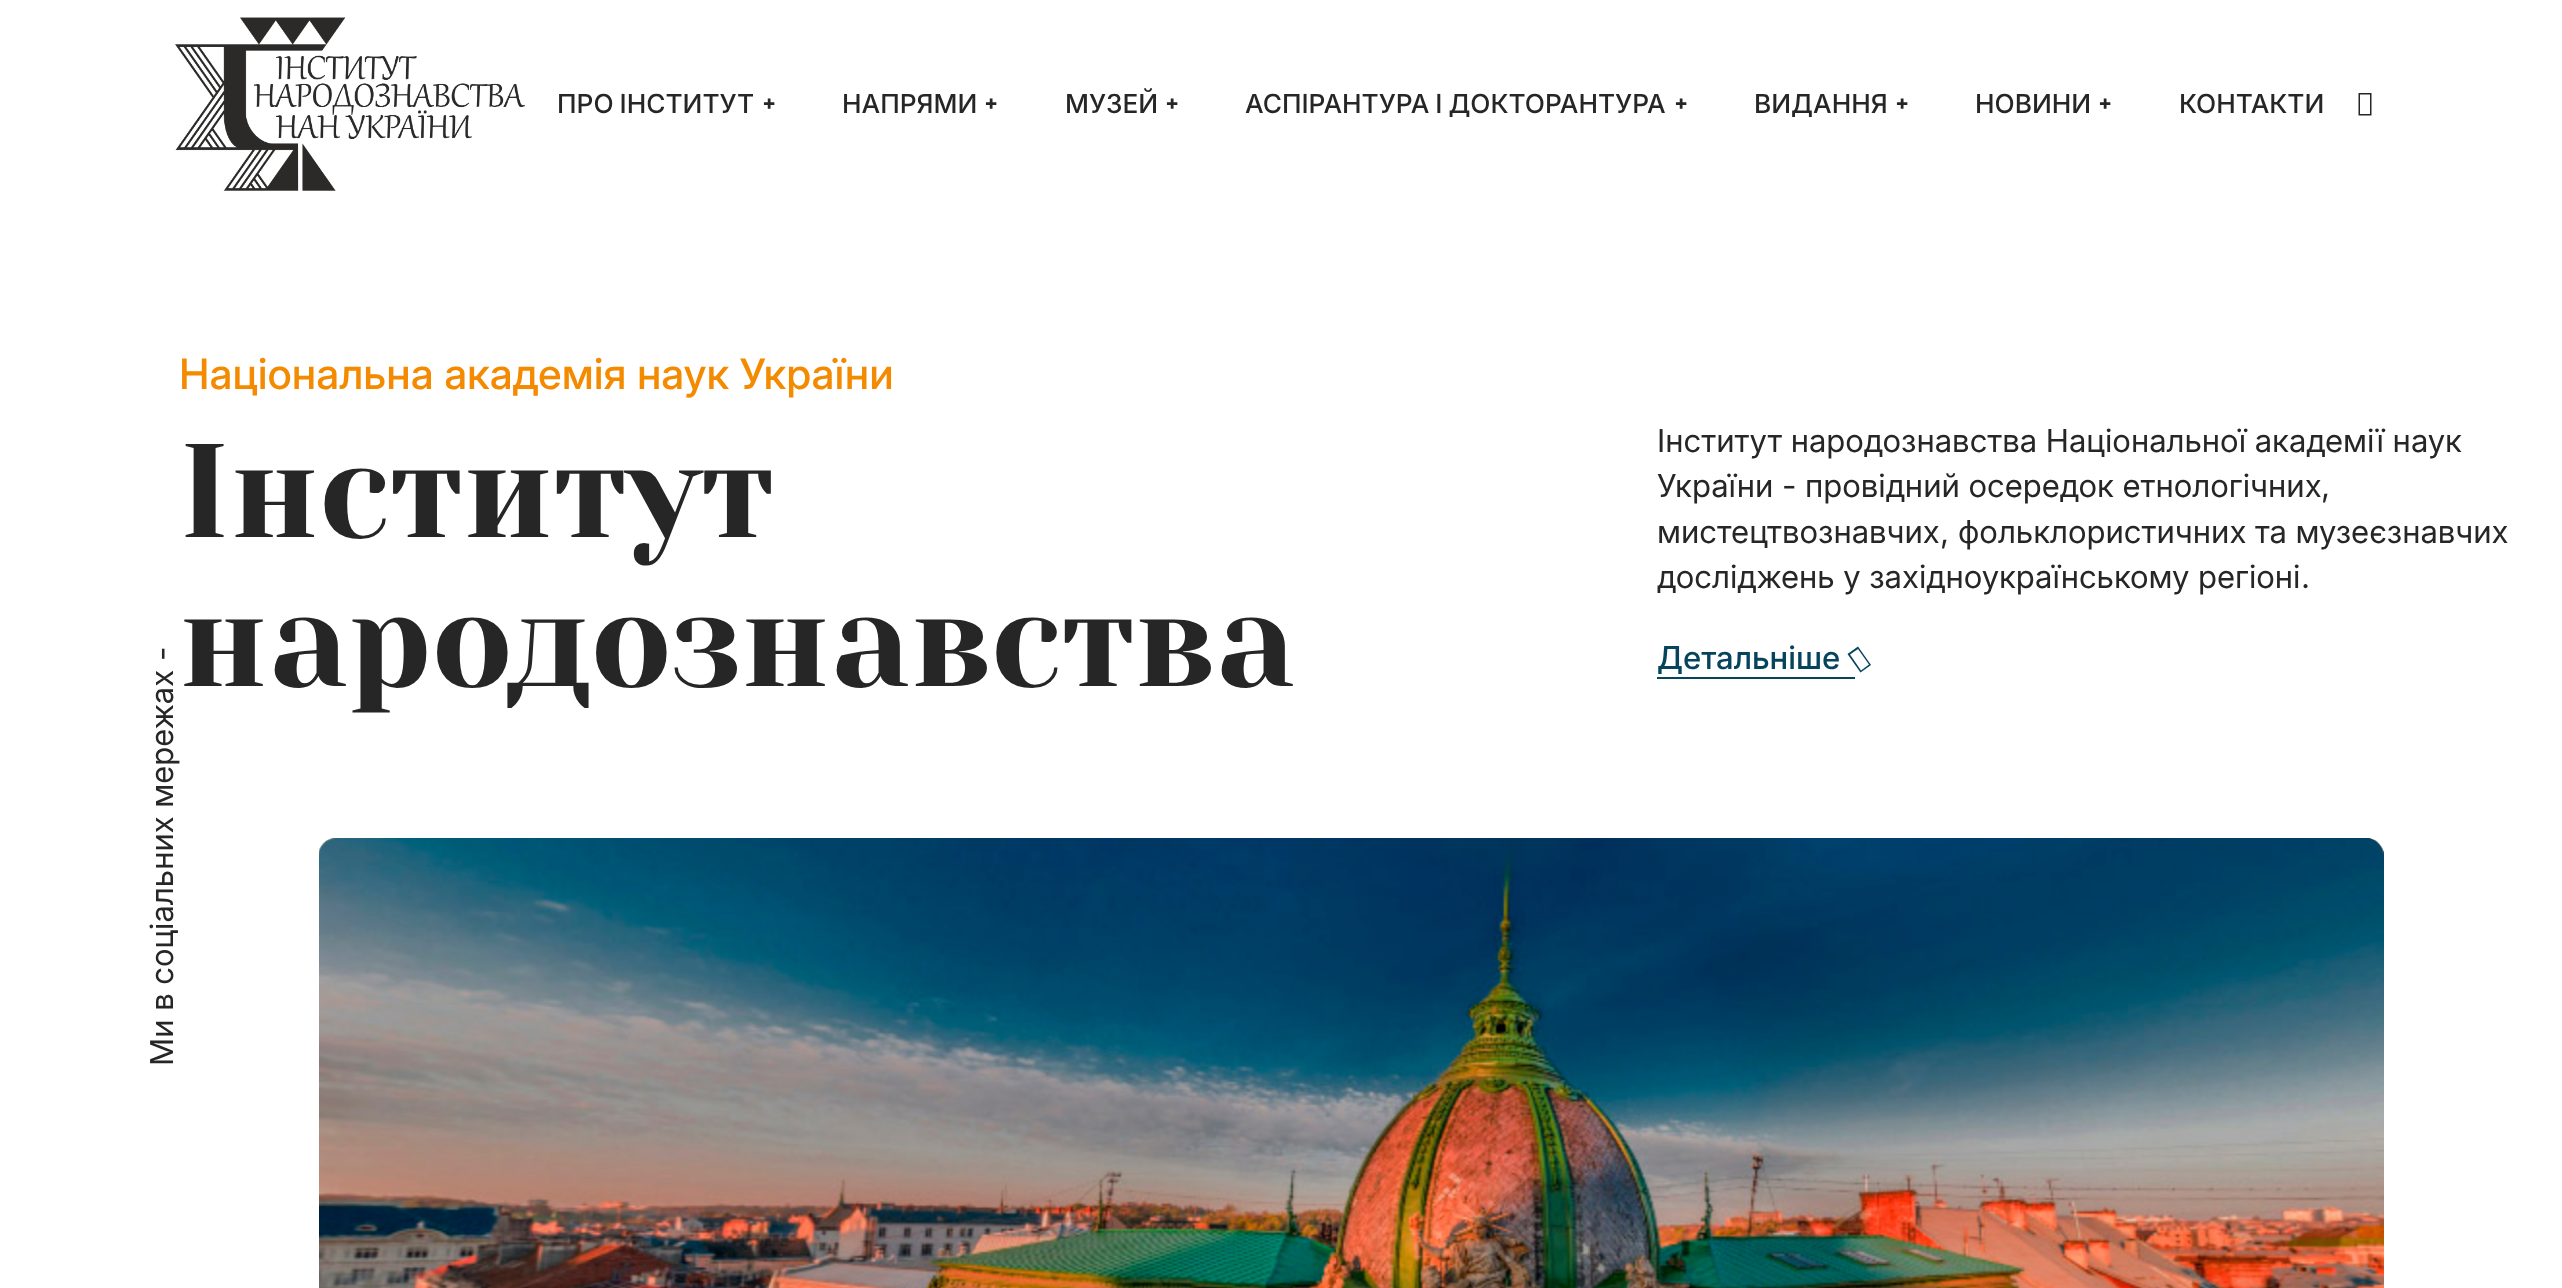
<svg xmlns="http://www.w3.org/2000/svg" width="2562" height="1288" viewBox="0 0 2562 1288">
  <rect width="100%" height="100%" fill="rgb(255,255,255)"/>
  <image x="175" y="17" width="350" height="174" href="pic1.png"/>
  <text x="557" y="113" word-spacing="-1" font-family="'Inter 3'" font-size="26.25" font-weight="500" fill="rgb(38,38,38)">ПРО ІНСТИТУТ</text>
  <text x="763" y="111" font-family="Noto Sans" font-size="21" font-weight="900" fill="rgb(38,38,38)">+</text>
  <text x="842" y="113" font-family="'Inter 3'" font-size="26.25" font-weight="500" fill="rgb(38,38,38)">НАПРЯМИ</text>
  <text x="985" y="111" font-family="Noto Sans" font-size="21" font-weight="900" fill="rgb(38,38,38)">+</text>
  <text x="1065" y="113" font-family="'Inter 3'" font-size="26.25" font-weight="500" fill="rgb(38,38,38)">МУЗЕЙ</text>
  <text x="1166" y="111" font-family="Noto Sans" font-size="21" font-weight="900" fill="rgb(38,38,38)">+</text>
  <text x="1245" y="113" word-spacing="-1" font-family="'Inter 3'" font-size="26.25" font-weight="500" fill="rgb(38,38,38)">АСПІРАНТУРА І ДОКТОРАНТУРА</text>
  <text x="1675" y="111" font-family="Noto Sans" font-size="21" font-weight="900" fill="rgb(38,38,38)">+</text>
  <text x="1754" y="113" font-family="'Inter 3'" font-size="26.25" font-weight="500" fill="rgb(38,38,38)">ВИДАННЯ</text>
  <text x="1896" y="111" font-family="Noto Sans" font-size="21" font-weight="900" fill="rgb(38,38,38)">+</text>
  <text x="1975" y="113" font-family="'Inter 3'" font-size="26.25" font-weight="500" fill="rgb(38,38,38)">НОВИНИ</text>
  <text x="2099" y="111" font-family="Noto Sans" font-size="21" font-weight="900" fill="rgb(38,38,38)">+</text>
  <text x="2179" y="113" font-family="'Inter 3'" font-size="26.25" font-weight="500" fill="rgb(38,38,38)">КОНТАКТИ</text>
  <path d="M2358.5 115.5V93H2371.5V115.5ZM2360 114H2370V94.5H2360Z" fill="rgb(38,38,38)"/>
  <text x="179" y="389" font-family="Inter" font-size="42" font-weight="500" fill="rgb(243,138,0)">Національна академія наук України</text>
  <g font-family="Yeseva One" font-size="133" fill="rgb(38,38,38)">
    <text>
      <tspan x="179" y="537">Інститут</tspan>
      <tspan x="179" y="686">народознавства</tspan>
    </text>
  </g>
  <g font-family="Inter" font-size="31.5" fill="rgb(38,38,38)">
    <text>
      <tspan x="1657" y="452">Інститут народознавства Національної академії наук</tspan>
      <tspan x="1657" y="497">України</tspan>
    </text>
  </g>
  <text x="1782" y="497" font-family="'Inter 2'" font-size="31.5" fill="rgb(38,38,38)">-</text>
  <text x="1805" y="497" font-family="Inter" font-size="31.5" fill="rgb(38,38,38)">провідний осередок етнологічних</text>
  <text x="2321" y="497" font-family="'Inter 2'" font-size="31.5" fill="rgb(38,38,38)">,</text>
  <text x="1657" y="543" font-family="Inter" font-size="31.5" fill="rgb(38,38,38)">мистецтвознавчих</text>
  <text x="1940" y="543" font-family="'Inter 2'" font-size="31.5" fill="rgb(38,38,38)">,</text>
  <g font-family="Inter" font-size="31.5" fill="rgb(38,38,38)">
    <text x="1958" y="543">фольклористичних та музеєзнавчих</text>
    <text x="1657" y="588">досліджень у західноукраїнському регіоні</text>
  </g>
  <text x="2301" y="588" font-family="'Inter 2'" font-size="31.5" fill="rgb(38,38,38)">.</text>
  <text x="1657" y="669" font-family="'Inter 2'" font-size="31.5" font-weight="500" fill="rgb(5,68,92)">Детальніше</text>
  <path d="M1860.5 672.5L1847.5 654L1858 646.5L1871 665ZM1861 670.5L1869 664.5L1858 649L1850 654.5Z" fill="rgb(5,68,92)"/>
  <rect x="1657" y="677" width="198" height="2" fill="rgb(5,68,92)"/>
  <image x="319" y="838" width="2065" height="19" href="pic2.png"/>
  <image x="319" y="838" width="2065" height="450" href="pic3.png"/>
  <text x="173" y="661" transform="rotate(-90 173 661)" font-family="'Inter 2'" font-size="31.5" fill="rgb(38,38,38)">-</text>
  <text x="173" y="1066" transform="rotate(-90 173 1066)" font-family="Inter" font-size="31.5" fill="rgb(38,38,38)">Ми в соціальних мережах</text>
</svg>
